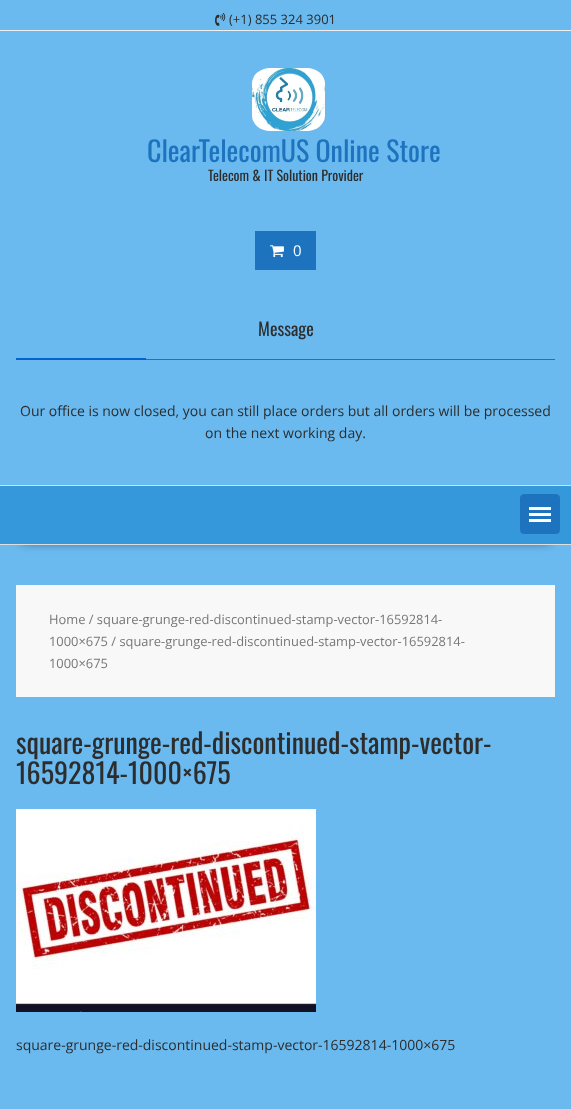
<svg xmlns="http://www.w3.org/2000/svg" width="571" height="1109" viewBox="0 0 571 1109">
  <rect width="100%" height="100%" fill="rgb(106,186,240)"/>
  <rect x="0" y="30" width="571" height="1" fill="rgb(238,238,238)"/>
  <image x="215" y="13" width="11" height="13" href="pic1.png"/>
  <text x="229" y="24" font-family="Open Sans" font-size="13" fill="rgb(45,45,45)">(+1) 855 324 3901</text>
  <image x="252" y="68" width="73" height="63" href="pic2.png"/>
  <text x="147" y="162" font-family="Oswald" font-size="28" fill="rgb(30,115,190)">ClearTelecomUS Online Store</text>
  <text x="208" y="181" font-family="Oswald" font-size="14" fill="rgb(45,45,45)">Telecom &amp; IT Solution Provider</text>
  <rect x="255" y="231" width="61" height="39" fill="rgb(30,115,190)"/>
  <image x="270" y="245" width="14" height="13" href="pic3.png"/>
  <text x="293" y="256" font-family="Open Sans" font-size="15" fill="rgb(255,255,255)">0</text>
  <rect x="146" y="359" width="409" height="1" fill="rgb(30,115,190)"/>
  <text x="258" y="336" font-family="Oswald" font-size="18" fill="rgb(45,45,45)">Message</text>
  <rect x="16" y="358" width="130" height="2" fill="rgb(2,99,202)"/>
  <g font-family="Open Sans" font-size="14" fill="rgb(45,45,45)">
    <text x="20" y="416">Our office is now closed, you can still place orders but all orders will be processed</text>
    <text x="205" y="438">on the next working day.</text>
  </g>
  <rect x="21" y="523" width="529" height="18" fill="rgba(0,0,0,0.75)" filter="blur(5.5px)"/>
  <rect x="0" y="486" width="571" height="58" fill="rgb(52,152,219)"/>
  <rect x="0" y="485" width="571" height="1" fill="rgb(222,222,222)"/>
  <rect x="0" y="544" width="571" height="1" fill="rgb(222,222,222)"/>
  <rect x="520.5" y="494.5" width="39" height="39" rx="3.5" fill="rgb(30,115,190)" stroke="rgb(30,115,190)"/>
  <rect x="529" y="519" width="22" height="3" fill="rgb(255,255,255)"/>
  <rect x="529" y="513" width="22" height="3" fill="rgb(255,255,255)"/>
  <rect x="529" y="507" width="22" height="3" fill="rgb(255,255,255)"/>
  <rect x="16" y="585" width="539" height="112" fill="rgb(248,248,248)"/>
  <g font-family="Open Sans" font-size="12.9" fill="rgb(119,119,119)">
    <text>
      <tspan x="49" y="624">Home / square-grunge-red-discontinued-stamp-vector-16592814-</tspan>
      <tspan x="49" y="646">1000×675 / square-grunge-red-discontinued-stamp-vector-16592814-</tspan>
      <tspan x="49" y="668">1000×675</tspan>
    </text>
  </g>
  <g font-family="Oswald" font-size="28" fill="rgb(45,45,45)">
    <text>
      <tspan x="16" y="754">square-grunge-red-discontinued-stamp-vector-</tspan>
      <tspan x="16" y="784">16592814-1000×675</tspan>
    </text>
  </g>
  <image x="16" y="809" width="300" height="203" href="pic4.png"/>
  <text x="16" y="1050" font-family="Open Sans" font-size="14" fill="rgb(45,45,45)">square-grunge-red-discontinued-stamp-vector-16592814-1000×675</text>
</svg>
